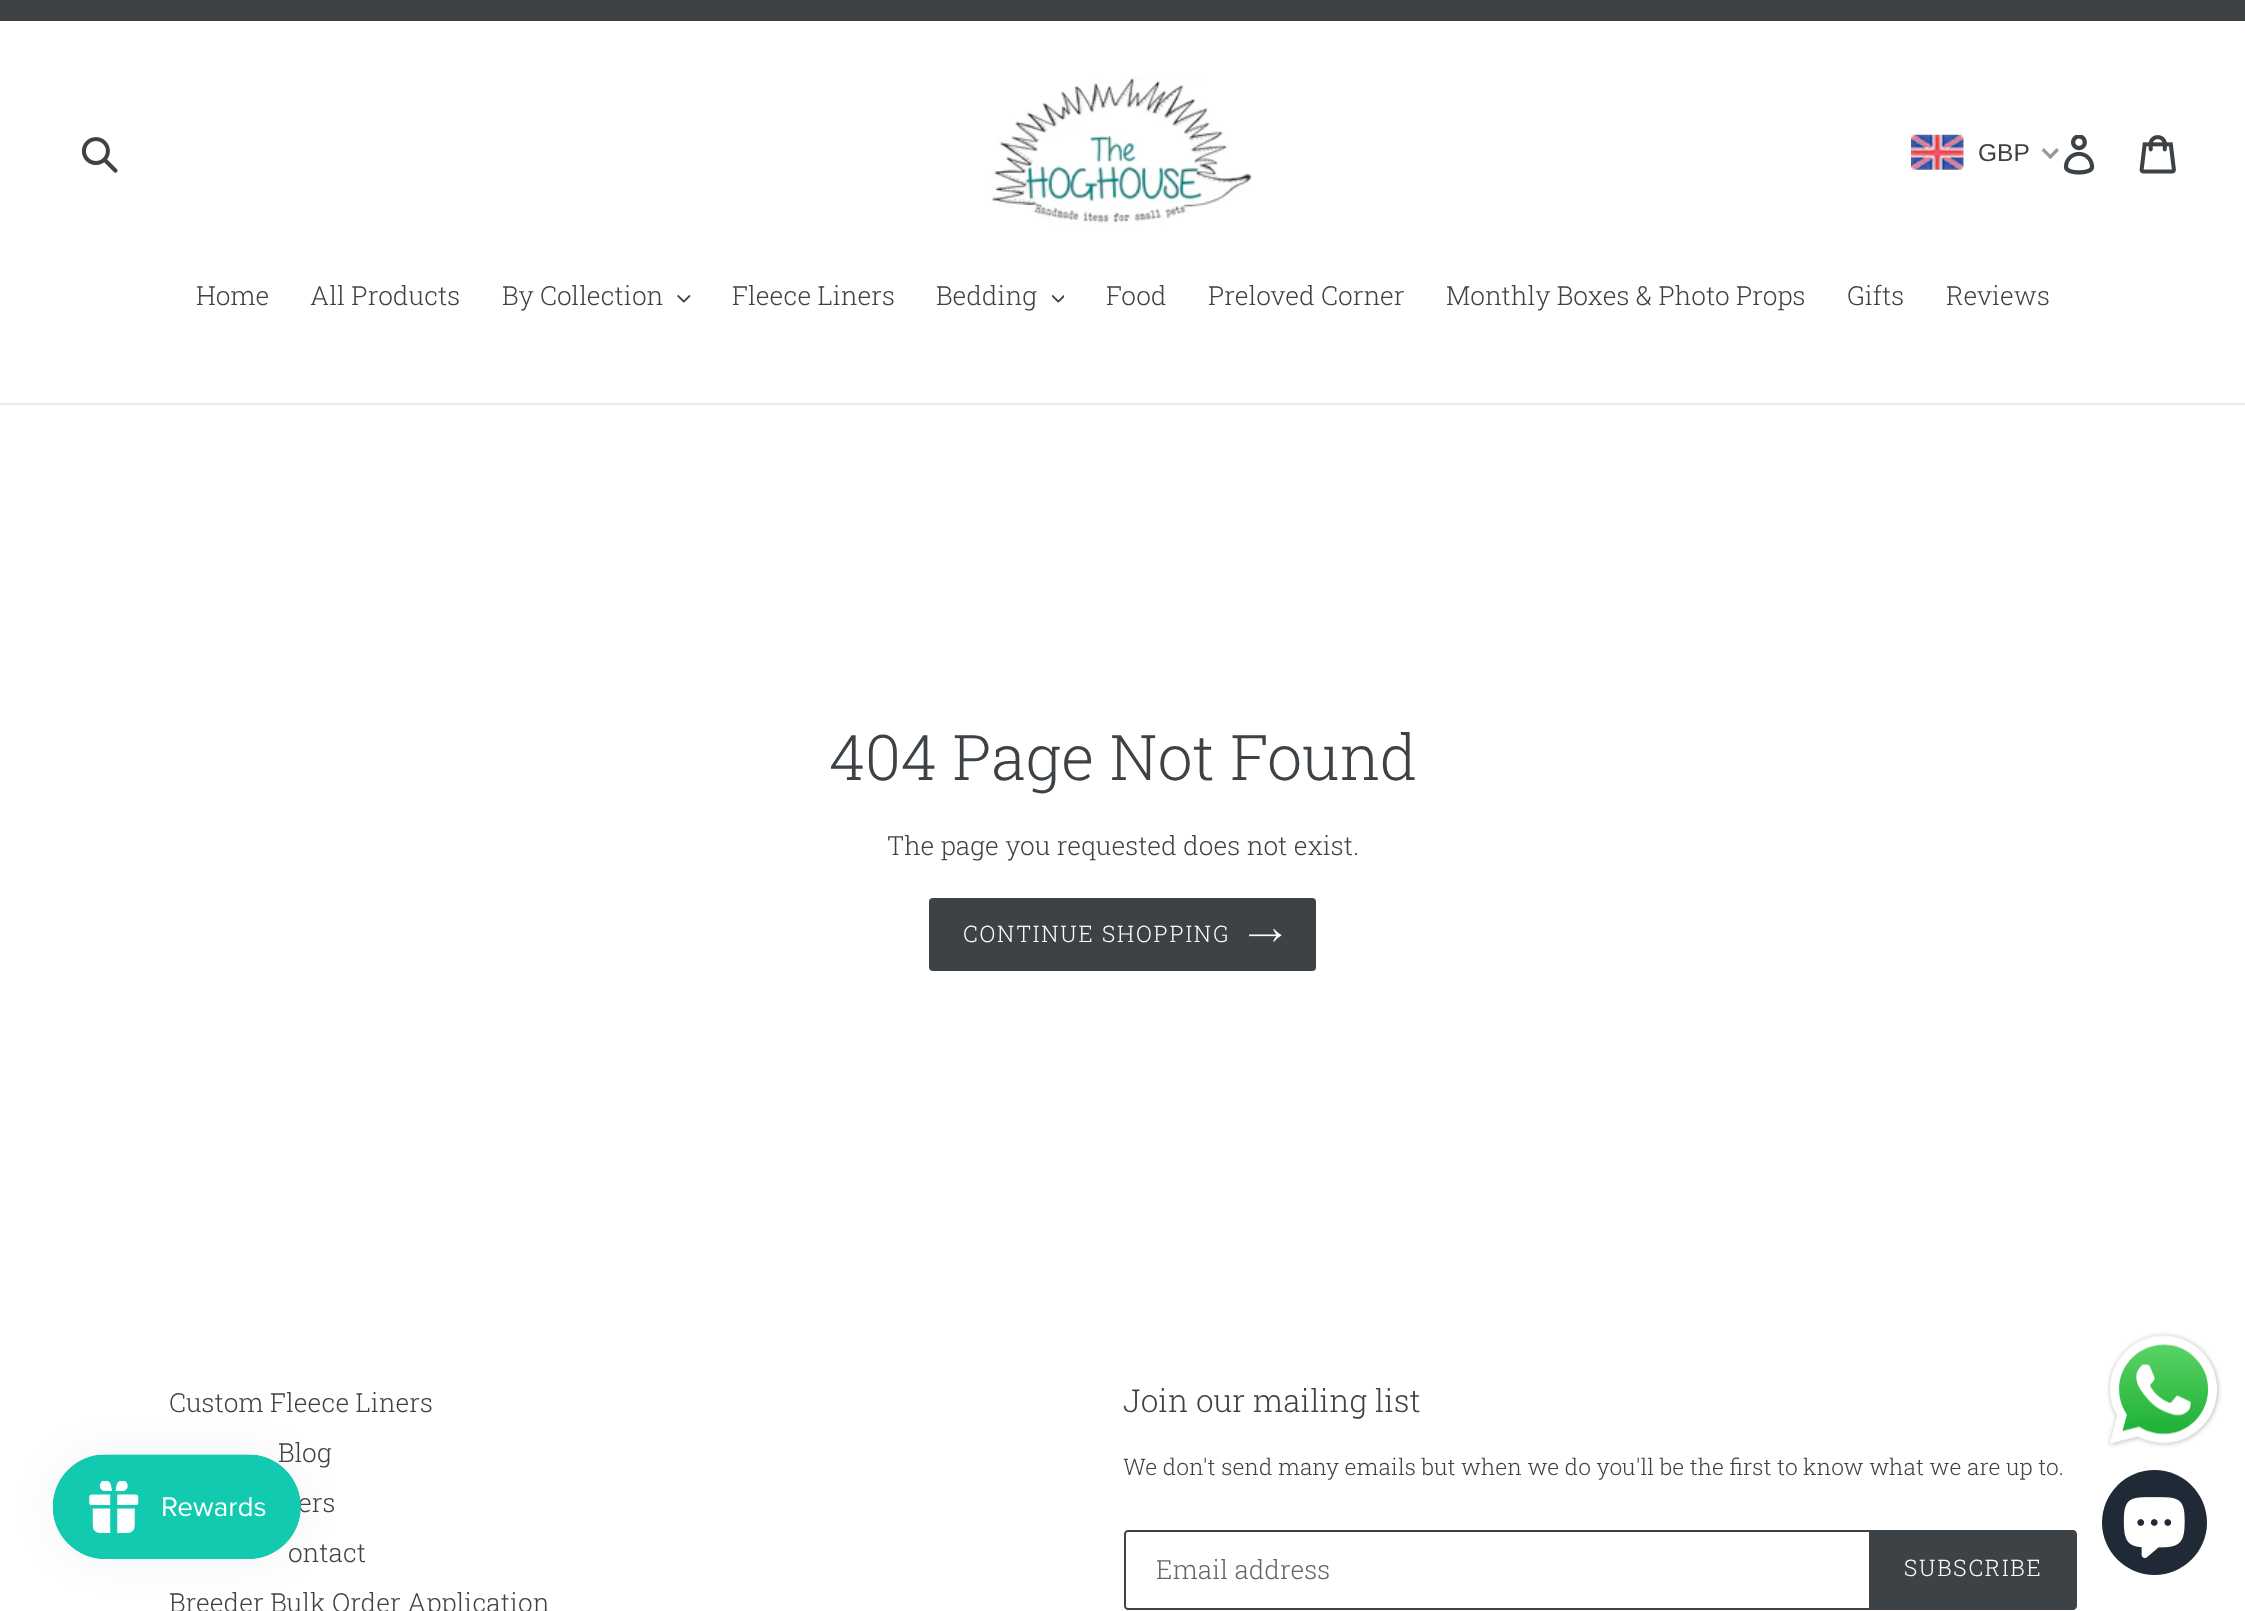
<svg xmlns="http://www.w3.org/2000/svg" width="2245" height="1611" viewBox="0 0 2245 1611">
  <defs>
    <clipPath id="clip1"><rect x="1157" y="1552" width="681" height="35"/></clipPath>
  </defs>
  <rect width="100%" height="100%" fill="rgb(255,255,255)"/>
  <rect x="0" y="0" width="2245" height="21" fill="rgb(61,66,70)"/>
  <image x="81" y="137" width="37" height="36" href="pic1.png"/>
  <image x="991" y="77" width="261" height="148" href="pic2.png"/>
  <image x="1911" y="134" width="53" height="36" href="pic3.png"/>
  <text x="1978" y="161" font-family="Liberation Sans" font-size="24.5" fill="rgb(64,63,63)">GBP</text>
  <path d="M2056.5 148L2059 150.5L2050.5 159L2048 157Z" fill="rgb(153,153,153)"/>
  <path d="M2044 148L2052.5 157L2050.5 159L2041.5 150.5Z" fill="rgb(153,153,153)"/>
  <image x="2063" y="135" width="32" height="40" href="pic4.png"/>
  <image x="2139" y="135" width="37" height="39" href="pic5.png"/>
  <rect x="0" y="403" width="2245" height="2" fill="rgb(232,233,235)"/>
  <g font-family="Roboto Slab" font-size="26.25" font-weight="300" fill="rgb(61,66,70)">
    <text x="196" y="305">Home</text>
    <text x="310" y="305">All Products</text>
    <text x="502" y="305">By Collection</text>
  </g>
  <image x="677" y="295" width="14" height="8" href="pic6.png"/>
  <g font-family="Roboto Slab" font-size="26.25" font-weight="300" fill="rgb(61,66,70)">
    <text x="732" y="305">Fleece Liners</text>
    <text x="936" y="305">Bedding</text>
  </g>
  <image x="1052" y="295" width="12" height="8" href="pic7.png"/>
  <g font-family="Roboto Slab" font-size="26.25" font-weight="300" fill="rgb(61,66,70)">
    <text x="1106" y="305">Food</text>
    <text x="1208" y="305">Preloved Corner</text>
    <text x="1446" y="305">Monthly Boxes &amp; Photo Props</text>
    <text x="1847" y="305">Gifts</text>
    <text x="1946" y="305">Reviews</text>
  </g>
  <text x="829" y="780" font-family="Roboto Slab" font-size="63" font-weight="300" fill="rgb(61,66,70)">404 Page Not Found</text>
  <text x="887" y="855" font-family="Roboto Slab" font-size="26.25" font-weight="300" fill="rgb(61,66,70)">The page you requested does not exist.</text>
  <rect x="929" y="898" width="387" height="73" rx="4" fill="rgb(61,66,70)"/>
  <text x="963" y="942" font-family="Roboto Slab" font-size="22.75" font-weight="300" letter-spacing="1.8" fill="rgb(255,255,255)">CONTINUE SHOPPING</text>
  <image x="1249" y="929" width="33" height="13" href="pic8.png"/>
  <g font-family="Roboto Slab" font-size="26.25" font-weight="300" fill="rgb(61,66,70)">
    <text x="169" y="1412">Custom Fleece Liners</text>
    <text x="278" y="1462">Blog</text>
    <text x="298" y="1512">ers</text>
    <text x="288" y="1562">ontact</text>
    <text x="169" y="1612">Breeder Bulk Order Application</text>
  </g>
  <text x="1123" y="1412" font-family="Roboto Slab" font-size="31.5" font-weight="300" fill="rgb(61,66,70)">Join our mailing list</text>
  <text x="1123" y="1475" font-family="Roboto Slab" font-size="22.75" font-weight="300" fill="rgb(61,66,70)">We don't send many emails but when we do you'll be the first to know what we are up to.</text>
  <path d="M1128 1531H1870V1609H1128C1126.5 1609 1125 1607.5 1125 1606V1534C1125 1532.5 1126.5 1531 1128 1531Z" fill="none" stroke="rgb(61,66,70)" stroke-width="2"/>
  <g clip-path="url(#clip1)">
    <text x="1156" y="1579" font-family="Roboto Slab" font-size="26.25" font-weight="300" fill="rgb(102,102,102)">Email address</text>
  </g>
  <path d="M1871 1530H2073C2075 1530 2077 1532 2077 1534V1606C2077 1608 2075 1610 2073 1610H1871Z" fill="rgb(61,66,70)"/>
  <text x="1904" y="1576" font-family="Roboto Slab" font-size="22.75" font-weight="300" letter-spacing="1.8" fill="rgb(255,255,255)">SUBSCRIBE</text>
  <image x="2107" y="1332" width="115" height="116" href="pic9.png"/>
  <rect x="53" y="1454" width="248" height="105" rx="52.5" fill="rgba(0,0,0,0.05)" filter="blur(22px)"/>
  <image x="52" y="1454" width="249" height="105" href="pic10.png"/>
  <circle cx="2154.5" cy="1522.5" r="52.5" fill="rgb(32,42,54)"/>
  <image x="2123" y="1497" width="62" height="61" href="pic11.png"/>
</svg>
